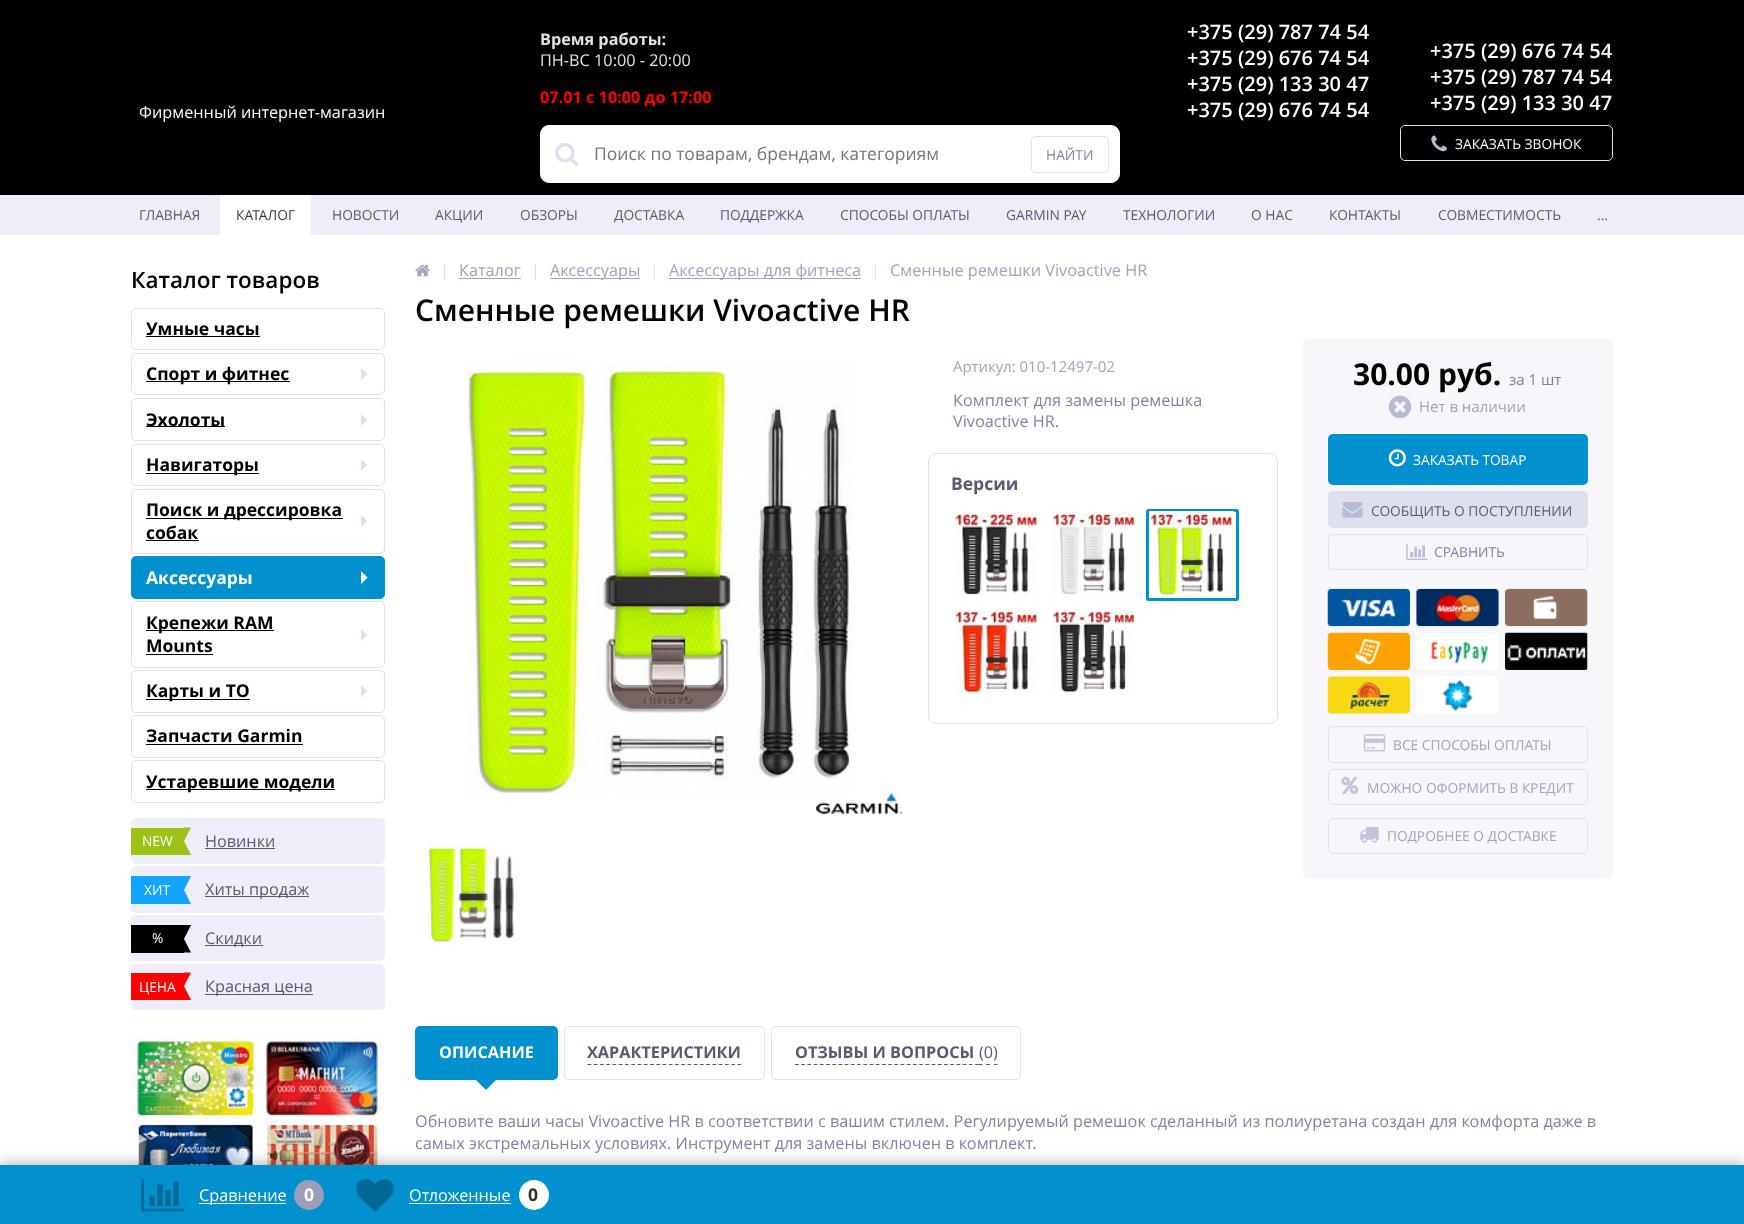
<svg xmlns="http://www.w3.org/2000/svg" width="1744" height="1224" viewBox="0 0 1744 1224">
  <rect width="100%" height="100%" fill="rgb(237,238,248)"/>
  <rect x="0" y="0" width="1744" height="195" fill="rgb(0,0,0)"/>
  <text x="139" y="118" font-family="Open Sans" font-size="16.25" fill="rgb(255,255,255)">Фирменный интернет-магазин</text>
  <text x="540" y="45" font-family="Open Sans" font-size="16.25" font-weight="bold" fill="rgb(225,225,225)">Время работы:</text>
  <text x="540" y="66" font-family="Open Sans" font-size="16.25" fill="rgb(225,225,225)">ПН-ВС 10:00 - 20:00</text>
  <text x="540" y="103" font-family="Open Sans" font-size="16.25" font-weight="bold" fill="rgb(255,0,0)">07.01 с 10:00 до 17:00</text>
  <rect x="540.5" y="125.5" width="579" height="57" rx="8.5" fill="rgb(255,255,255)" stroke="rgb(255,255,255)"/>
  <image x="555" y="143" width="24" height="23" href="pic1.png"/>
  <text x="594" y="160" font-family="Open Sans" font-size="17.5" fill="rgb(117,117,117)">Поиск по товарам, брендам, категориям</text>
  <rect x="1031.5" y="136.5" width="77" height="36" rx="4.5" fill="none" stroke="rgb(222,224,238)"/>
  <text x="1046" y="160" font-family="Open Sans" font-size="13.75" fill="rgb(129,132,161)">НАЙТИ</text>
  <g font-family="Open Sans" font-size="20" font-weight="600" fill="rgb(255,255,255)">
    <text>
      <tspan x="1187" y="39">+375 (29) 787 74 54</tspan>
      <tspan x="1187" y="65">+375 (29) 676 74 54</tspan>
      <tspan x="1187" y="91">+375 (29) 133 30 47</tspan>
      <tspan x="1187" y="117">+375 (29) 676 74 54</tspan>
    </text>
    <text>
      <tspan x="1430" y="58">+375 (29) 676 74 54</tspan>
      <tspan x="1430" y="84">+375 (29) 787 74 54</tspan>
      <tspan x="1430" y="110">+375 (29) 133 30 47</tspan>
    </text>
  </g>
  <rect x="1400.5" y="125.5" width="212" height="35" rx="4.5" fill="none" stroke="rgb(222,224,238)"/>
  <image x="1431" y="135" width="16" height="17" href="pic2.png"/>
  <text x="1455" y="149" font-family="Open Sans" font-size="13.75" fill="rgb(255,255,255)">ЗАКАЗАТЬ ЗВОНОК</text>
  <text x="139" y="220" font-family="Open Sans" font-size="13.75" fill="rgb(87,91,113)">ГЛАВНАЯ</text>
  <rect x="220" y="195" width="91" height="40" fill="rgb(255,255,255)"/>
  <text x="236" y="220" font-family="Open Sans" font-size="13.75" fill="rgb(52,56,61)">КАТАЛОГ</text>
  <g font-family="Open Sans" font-size="13.75" fill="rgb(87,91,113)">
    <text x="332" y="220">НОВОСТИ</text>
    <text x="435" y="220">АКЦИИ</text>
    <text x="520" y="220">ОБЗОРЫ</text>
    <text x="614" y="220">ДОСТАВКА</text>
    <text x="720" y="220">ПОДДЕРЖКА</text>
    <text x="840" y="220">СПОСОБЫ ОПЛАТЫ</text>
    <text x="1006" y="220">GARMIN PAY</text>
    <text x="1123" y="220">ТЕХНОЛОГИИ</text>
    <text x="1251" y="220">О НАС</text>
    <text x="1329" y="220">КОНТАКТЫ</text>
    <text x="1438" y="220">СОВМЕСТИМОСТЬ</text>
    <text x="1597" y="220">...</text>
  </g>
  <rect x="0" y="235" width="1744" height="930" fill="rgb(255,255,255)"/>
  <text x="131" y="288" font-family="Open Sans" font-size="22.5" font-weight="600" fill="rgb(0,0,0)">Каталог товаров</text>
  <rect x="131.5" y="308.5" width="253" height="41" rx="4.5" fill="none" stroke="rgb(222,224,238)"/>
  <text x="146" y="335" font-family="Open Sans" font-size="17.5" font-weight="bold" fill="rgb(0,0,0)">Умные часы</text>
  <rect x="146" y="336" width="114" height="1" fill="rgb(0,0,0)"/>
  <rect x="131.5" y="353.5" width="253" height="41" rx="4.5" fill="none" stroke="rgb(222,224,238)"/>
  <rect x="146" y="381" width="144" height="1" fill="rgb(0,0,0)"/>
  <text x="146" y="380" font-family="Open Sans" font-size="17.5" font-weight="bold" fill="rgb(0,0,0)">Спорт и фитнес</text>
  <path d="M361 380V367.5L367.5 374Z" fill="rgb(222,224,238)"/>
  <rect x="131.5" y="398.5" width="253" height="42" rx="4.5" fill="none" stroke="rgb(222,224,238)"/>
  <rect x="146" y="426" width="79" height="1" fill="rgb(0,0,0)"/>
  <text x="146" y="426" font-family="Open Sans" font-size="17.5" font-weight="bold" fill="rgb(0,0,0)">Эхолоты</text>
  <path d="M361 426V414L367.5 420Z" fill="rgb(222,224,238)"/>
  <rect x="131.5" y="444.5" width="253" height="41" rx="4.5" fill="none" stroke="rgb(222,224,238)"/>
  <rect x="146" y="473" width="113" height="1" fill="rgb(0,0,0)"/>
  <text x="146" y="471" font-family="Open Sans" font-size="17.5" font-weight="bold" fill="rgb(0,0,0)">Навигаторы</text>
  <path d="M361 471V459L367.5 465Z" fill="rgb(222,224,238)"/>
  <rect x="131.5" y="489.5" width="253" height="64" rx="4.5" fill="none" stroke="rgb(222,224,238)"/>
  <rect x="146" y="518" width="197" height="1" fill="rgb(0,0,0)"/>
  <text x="146" y="516" font-family="Open Sans" font-size="17.5" font-weight="bold" fill="rgb(0,0,0)">Поиск и дрессировка</text>
  <path d="M361 527.5V515L367.5 521Z" fill="rgb(222,224,238)"/>
  <text x="146" y="539" font-family="Open Sans" font-size="17.5" font-weight="bold" fill="rgb(0,0,0)">собак</text>
  <rect x="146" y="540" width="53" height="1" fill="rgb(0,0,0)"/>
  <rect x="131.5" y="556.5" width="253" height="42" rx="4.5" fill="rgb(1,145,206)" stroke="rgb(1,145,206)"/>
  <text x="146" y="584" font-family="Open Sans" font-size="17.5" font-weight="bold" fill="rgb(255,255,255)">Аксессуары</text>
  <path d="M361 584V571L367.5 577.5Z" fill="rgb(255,255,255)"/>
  <rect x="131.5" y="601.5" width="253" height="66" rx="4.5" fill="none" stroke="rgb(222,224,238)"/>
  <rect x="146" y="630" width="128" height="1" fill="rgb(0,0,0)"/>
  <text x="146" y="629" font-family="Open Sans" font-size="17.5" font-weight="bold" fill="rgb(0,0,0)">Крепежи RAM</text>
  <path d="M361 641V629L367.5 635Z" fill="rgb(222,224,238)"/>
  <text x="146" y="652" font-family="Open Sans" font-size="17.5" font-weight="bold" fill="rgb(0,0,0)">Mounts</text>
  <rect x="146" y="654" width="67" height="1" fill="rgb(0,0,0)"/>
  <rect x="131.5" y="670.5" width="253" height="42" rx="4.5" fill="none" stroke="rgb(222,224,238)"/>
  <rect x="146" y="699" width="104" height="1" fill="rgb(0,0,0)"/>
  <text x="146" y="697" font-family="Open Sans" font-size="17.5" font-weight="bold" fill="rgb(0,0,0)">Карты и ТО</text>
  <path d="M361 697.5V685L367.5 691Z" fill="rgb(222,224,238)"/>
  <rect x="131.5" y="715.5" width="253" height="42" rx="4.5" fill="none" stroke="rgb(222,224,238)"/>
  <text x="146" y="742" font-family="Open Sans" font-size="17.5" font-weight="bold" fill="rgb(0,0,0)">Запчасти Garmin</text>
  <rect x="146" y="744" width="157" height="1" fill="rgb(0,0,0)"/>
  <rect x="131.5" y="760.5" width="253" height="42" rx="4.5" fill="none" stroke="rgb(222,224,238)"/>
  <rect x="146" y="789" width="189" height="1" fill="rgb(0,0,0)"/>
  <text x="146" y="788" font-family="Open Sans" font-size="17.5" font-weight="bold" fill="rgb(0,0,0)">Устаревшие модели</text>
  <rect x="132.5" y="819.5" width="251" height="43" rx="3.5" fill="rgb(237,238,248)" stroke="rgb(237,238,248)" stroke-width="3"/>
  <rect x="131" y="828" width="53" height="27" fill="rgb(156,194,24)"/>
  <text x="142" y="846" font-family="Open Sans" font-size="13.75" fill="rgb(255,255,255)">NEW</text>
  <path d="M184 827.5H191L184 841ZM191 855H184V841Z" fill="rgb(156,194,24)"/>
  <text x="205" y="847" font-family="Open Sans" font-size="16.25" fill="rgb(87,91,113)">Новинки</text>
  <rect x="205" y="848" width="70" height="1" fill="rgb(87,91,113)"/>
  <rect x="132.5" y="867.5" width="251" height="44" rx="3.5" fill="rgb(237,238,248)" stroke="rgb(237,238,248)" stroke-width="3"/>
  <rect x="131" y="876" width="53" height="28" fill="rgb(19,164,255)"/>
  <text x="144" y="895" font-family="Open Sans" font-size="13.75" fill="rgb(255,255,255)">ХИТ</text>
  <path d="M184 876H191L184 890ZM191 904H184V890Z" fill="rgb(19,164,255)"/>
  <rect x="205" y="896" width="104" height="1" fill="rgb(87,91,113)"/>
  <text x="205" y="895" font-family="Open Sans" font-size="16.25" fill="rgb(87,91,113)">Хиты продаж</text>
  <rect x="132.5" y="916.5" width="251" height="43" rx="3.5" fill="rgb(237,238,248)" stroke="rgb(237,238,248)" stroke-width="3"/>
  <rect x="131" y="925" width="53" height="28" fill="rgb(0,0,0)"/>
  <text x="152" y="943" font-family="Open Sans" font-size="13.75" fill="rgb(255,255,255)">%</text>
  <path d="M184 925H191L184 939ZM191 952.5H184V939Z" fill="rgb(0,0,0)"/>
  <rect x="205" y="945" width="58" height="1" fill="rgb(87,91,113)"/>
  <text x="205" y="944" font-family="Open Sans" font-size="16.25" fill="rgb(87,91,113)">Скидки</text>
  <rect x="132.5" y="965.5" width="251" height="43" rx="3.5" fill="rgb(237,238,248)" stroke="rgb(237,238,248)" stroke-width="3"/>
  <rect x="131" y="973" width="53" height="27" fill="rgb(255,0,0)"/>
  <text x="139" y="992" font-family="Open Sans" font-size="13.75" fill="rgb(255,255,255)">ЦЕНА</text>
  <path d="M184 972.5H191L184 986ZM191 1000H184V986Z" fill="rgb(255,0,0)"/>
  <rect x="205" y="994" width="108" height="1" fill="rgb(87,91,113)"/>
  <text x="205" y="992" font-family="Open Sans" font-size="16.25" fill="rgb(87,91,113)">Красная цена</text>
  <image x="131" y="1035" width="253" height="130" href="pic3.png"/>
  <image x="415" y="264" width="15" height="13" href="pic4.png"/>
  <text x="440" y="276" font-family="Open Sans" font-size="16.25" fill="rgb(222,224,238)">|</text>
  <text x="459" y="276" font-family="Open Sans" font-size="16.25" fill="rgb(160,164,188)">Каталог</text>
  <rect x="459" y="278" width="62" height="1" fill="rgb(160,164,188)"/>
  <text x="531" y="276" font-family="Open Sans" font-size="16.25" fill="rgb(222,224,238)">|</text>
  <rect x="550" y="278" width="90" height="1" fill="rgb(160,164,188)"/>
  <text x="550" y="276" font-family="Open Sans" font-size="16.25" fill="rgb(160,164,188)">Аксессуары</text>
  <text x="650" y="276" font-family="Open Sans" font-size="16.25" fill="rgb(222,224,238)">|</text>
  <rect x="669" y="278" width="192" height="1" fill="rgb(160,164,188)"/>
  <text x="669" y="276" font-family="Open Sans" font-size="16.25" fill="rgb(160,164,188)">Аксессуары для фитнеса</text>
  <text x="871" y="276" font-family="Open Sans" font-size="16.25" fill="rgb(222,224,238)">|</text>
  <text x="890" y="276" font-family="Open Sans" font-size="16.25" fill="rgb(160,164,188)">Сменные ремешки Vivoactive HR</text>
  <text x="415" y="321" font-family="Open Sans" font-size="30" font-weight="600" fill="rgb(0,0,0)">Сменные ремешки Vivoactive HR</text>
  <image x="465" y="364" width="390" height="435" href="pic5.png"/>
  <image x="816" y="793" width="87" height="21" href="pic6.png"/>
  <image x="428" y="842" width="86" height="100" href="pic7.png"/>
  <text x="953" y="372" font-family="Open Sans" font-size="15" fill="rgb(160,164,188)">Артикул: 010-12497-02</text>
  <rect x="1303" y="339" width="310" height="540" rx="5" fill="rgb(246,246,251)"/>
  <text x="1353" y="385" font-family="Open Sans" font-size="30" font-weight="bold" fill="rgb(0,0,0)">30.00 руб.</text>
  <text x="1509" y="385" font-family="Open Sans" font-size="15" fill="rgb(129,132,161)">за 1 шт</text>
  <image x="1388" y="395" width="24" height="24" href="pic8.png"/>
  <text x="1419" y="412" font-family="Open Sans" font-size="15" fill="rgb(160,164,188)">Нет в наличии</text>
  <rect x="1328" y="434" width="260" height="51" rx="5" fill="rgb(1,145,206)"/>
  <image x="1388" y="449" width="18" height="18" href="pic9.png"/>
  <text x="1413" y="465" font-family="Open Sans" font-size="13.75" fill="rgb(255,255,255)">ЗАКАЗАТЬ ТОВАР</text>
  <rect x="1328" y="491" width="260" height="37" rx="5" fill="rgb(222,224,238)"/>
  <image x="1342" y="502" width="21" height="16" href="pic10.png"/>
  <text x="1371" y="516" font-family="Open Sans" font-size="13.75" fill="rgb(87,91,113)">СООБЩИТЬ О ПОСТУПЛЕНИИ</text>
  <rect x="1328.5" y="534.5" width="259" height="35" rx="4.5" fill="none" stroke="rgb(222,224,238)"/>
  <image x="1406" y="544" width="22" height="17" href="pic11.png"/>
  <text x="1434" y="557" font-family="Open Sans" font-size="13.75" fill="rgb(129,132,161)">СРАВНИТЬ</text>
  <image x="1327" y="588" width="83" height="39" href="pic12.png"/>
  <image x="1416" y="588" width="83" height="39" href="pic13.png"/>
  <image x="1505" y="588" width="83" height="39" href="pic14.png"/>
  <image x="1327" y="632" width="83" height="38" href="pic15.png"/>
  <image x="1416" y="633" width="83" height="37" href="pic16.png"/>
  <image x="1505" y="632" width="83" height="38" href="pic17.png"/>
  <image x="1327" y="676" width="83" height="38" href="pic18.png"/>
  <image x="1416" y="676" width="83" height="38" href="pic19.png"/>
  <rect x="1328.5" y="726.5" width="259" height="36" rx="4.5" fill="none" stroke="rgb(222,224,238)"/>
  <image x="1363" y="734" width="23" height="18" href="pic20.png"/>
  <text x="1393" y="750" font-family="Open Sans" font-size="13.75" fill="rgb(160,164,188)">ВСЕ СПОСОБЫ ОПЛАТЫ</text>
  <rect x="1328.5" y="769.5" width="259" height="35" rx="4.5" fill="none" stroke="rgb(222,224,238)"/>
  <image x="1341" y="776" width="18" height="18" href="pic21.png"/>
  <text x="1367" y="793" font-family="Open Sans" font-size="13.75" fill="rgb(160,164,188)">МОЖНО ОФОРМИТЬ В КРЕДИТ</text>
  <rect x="1328.5" y="818.5" width="259" height="35" rx="4.5" fill="none" stroke="rgb(222,224,238)"/>
  <image x="1359" y="827" width="20" height="16" href="pic22.png"/>
  <text x="1387" y="841" font-family="Open Sans" font-size="13.75" fill="rgb(160,164,188)">ПОДРОБНЕЕ О ДОСТАВКЕ</text>
  <g font-family="Open Sans" font-size="16.25" fill="rgb(129,132,161)">
    <text>
      <tspan x="953" y="406">Комплект для замены ремешка</tspan>
      <tspan x="953" y="427">Vivoactive HR.</tspan>
    </text>
  </g>
  <rect x="928.5" y="453.5" width="349" height="270" rx="7.5" fill="none" stroke="rgb(222,224,238)"/>
  <text x="951" y="490" font-family="Open Sans" font-size="17.5" font-weight="bold" fill="rgb(87,91,113)">Версии</text>
  <image x="955" y="512" width="83" height="83" href="pic23.png"/>
  <image x="1052" y="512" width="83" height="83" href="pic24.png"/>
  <rect x="1147.5" y="510.5" width="90" height="89" rx="1" fill="none" stroke="rgb(1,145,206)" stroke-width="3"/>
  <rect x="1149.5" y="511.5" width="84" height="84" fill="none" stroke="rgb(255,255,255)"/>
  <image x="1150" y="512" width="83" height="83" href="pic25.png"/>
  <image x="955" y="610" width="83" height="83" href="pic26.png"/>
  <image x="1052" y="610" width="83" height="83" href="pic27.png"/>
  <rect x="416.5" y="1027.5" width="140" height="51" rx="3.5" fill="rgb(1,145,206)" stroke="rgb(1,145,206)" stroke-width="3"/>
  <text x="439" y="1058" font-family="Open Sans" font-size="16.25" font-weight="bold" fill="rgb(255,255,255)">ОПИСАНИЕ</text>
  <path d="M476 1080H496L486 1090Z" fill="rgb(1,145,206)"/>
  <rect x="564.5" y="1026.5" width="200" height="53" rx="4.5" fill="none" stroke="rgb(222,224,238)"/>
  <text x="587" y="1058" font-family="Open Sans" font-size="16.25" font-weight="bold" fill="rgb(87,91,113)">ХАРАКТЕРИСТИКИ</text>
  <path d="M587.5 1064.5H741" fill="none" stroke="rgb(87,91,113)" stroke-width="1.2" stroke-dasharray="3.75 2.5"/>
  <rect x="771.5" y="1026.5" width="249" height="53" rx="4.5" fill="none" stroke="rgb(222,224,238)"/>
  <text x="795" y="1058" font-family="Open Sans" font-size="16.25" font-weight="bold" fill="rgb(87,91,113)">ОТЗЫВЫ И ВОПРОСЫ</text>
  <text x="979" y="1058" font-family="Open Sans" font-size="16.25" fill="rgb(87,91,113)">(0)</text>
  <path d="M795 1064.5H979" fill="none" stroke="rgb(87,91,113)" stroke-width="1.2" stroke-dasharray="3.75 2.46"/>
  <path d="M979 1064.5H982.5M986 1064.5H990M994 1064.5H997.5" fill="none" stroke="rgb(87,91,113)" stroke-width="1.2"/>
  <g font-family="Open Sans" font-size="16.25" fill="rgb(129,132,161)">
    <text>
      <tspan x="415" y="1127">Обновите ваши часы Vivoactive HR в соответствии с вашим стилем. Регулируемый ремешок сделанный из полиуретана создан для комфорта даже в</tspan>
      <tspan x="415" y="1149">самых экстремальных условиях. Инструмент для замены включен в комплект.</tspan>
    </text>
  </g>
  <rect x="0" y="1165" width="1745" height="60" fill="rgba(0,0,0,0.36)" filter="blur(7.5px)"/>
  <rect x="0" y="1165" width="1744" height="59" fill="rgb(1,145,206)"/>
  <rect x="1623" y="1165" width="1" height="59" fill="rgb(1,138,196)"/>
  <rect x="121" y="1165" width="1" height="59" fill="rgb(1,138,196)"/>
  <rect x="336" y="1165" width="1" height="59" fill="rgb(1,138,196)"/>
  <image x="141" y="1179" width="44" height="33" href="pic28.png"/>
  <rect x="199" y="1203" width="87" height="1" fill="rgb(255,255,255)"/>
  <text x="199" y="1201" font-family="Open Sans" font-size="16.25" fill="rgb(255,255,255)">Сравнение</text>
  <circle cx="309" cy="1195" r="15" fill="rgb(155,157,185)"/>
  <text x="304" y="1201" font-family="Open Sans" font-size="17.5" font-weight="bold" fill="rgb(255,255,255)">0</text>
  <rect x="561" y="1165" width="1" height="59" fill="rgb(1,138,196)"/>
  <image x="356" y="1179" width="38" height="33" href="pic29.png"/>
  <text x="409" y="1201" font-family="Open Sans" font-size="16.25" fill="rgb(255,255,255)">Отложенные</text>
  <rect x="409" y="1203" width="102" height="1" fill="rgb(255,255,255)"/>
  <circle cx="534" cy="1195" r="15" fill="rgb(255,255,255)"/>
  <text x="528" y="1201" font-family="Open Sans" font-size="17.5" font-weight="bold" fill="rgb(54,50,36)">0</text>
</svg>
